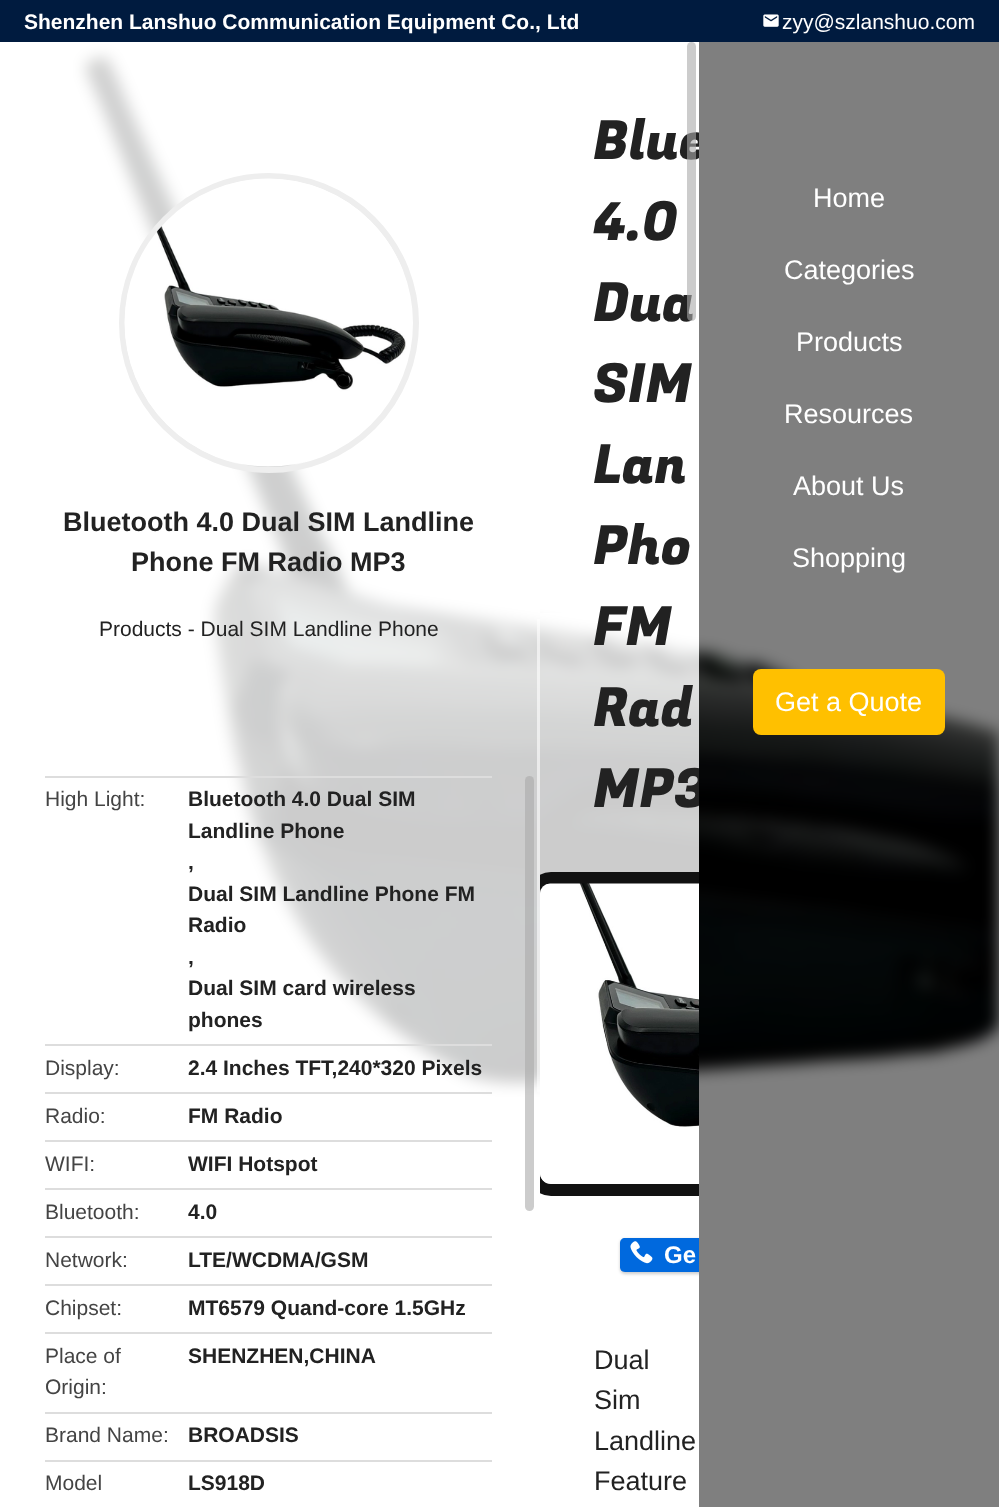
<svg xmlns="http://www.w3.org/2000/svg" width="999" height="1507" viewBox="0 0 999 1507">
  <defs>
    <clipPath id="clip1"><rect x="540" y="42" width="159" height="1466"/></clipPath>
    <clipPath id="clip2"><rect x="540" y="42" width="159" height="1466"/></clipPath>
  </defs>
  <rect width="100%" height="100%" fill="rgb(255,255,255)"/>
  <rect x="0" y="0" width="999" height="42" fill="rgb(0,27,63)"/>
  <text x="24" y="29" font-family="Liberation Sans" font-size="21" font-weight="bold" fill="rgb(255,255,255)">Shenzhen Lanshuo Communication Equipment Co., Ltd</text>
  <image x="763" y="14" width="16" height="13" href="pic1.png"/>
  <text x="782" y="29" font-family="Liberation Sans" font-size="21" fill="rgb(255,255,255)">zyy@szlanshuo.com</text>
  <image x="73" y="44" width="926" height="1053" href="pic2.png"/>
  <rect x="540" y="613" width="159" height="484" fill="rgba(255,255,255,0.8)"/>
  <g clip-path="url(#clip1)">
    <text x="593" y="159" font-family="Fugaz One" font-size="54" fill="rgb(34,34,34)">Blue</text>
  </g>
  <text x="593" y="321" font-family="Fugaz One" font-size="54" fill="rgb(34,34,34)">Dua</text>
  <rect x="687" y="42" width="9" height="279" rx="4.5" fill="rgba(170,170,170,0.6)"/>
  <g font-family="Fugaz One" font-size="54" fill="rgb(34,34,34)">
    <text x="593" y="240">4.0</text>
    <text>
      <tspan x="593" y="402">SIM</tspan>
      <tspan x="593" y="483">Lan</tspan>
      <tspan x="593" y="564">Pho</tspan>
      <tspan x="593" y="645">FM</tspan>
      <tspan x="593" y="726">Rad</tspan>
    </text>
  </g>
  <g clip-path="url(#clip1)">
    <text x="593" y="807" font-family="Fugaz One" font-size="54" fill="rgb(34,34,34)">MP3</text>
  </g>
  <rect x="699" y="42" width="300" height="1465" fill="rgba(0,0,0,0.5)"/>
  <rect x="73" y="44" width="467" height="1053" fill="rgba(255,255,255,0.8)"/>
  <rect x="537" y="619" width="3" height="473" fill="rgba(255,255,255,0.6)"/>
  <rect x="525" y="776" width="9" height="435" rx="4.5" fill="rgba(170,170,170,0.6)"/>
  <g clip-path="url(#clip1)">
    <rect x="534" y="878" width="432" height="312" rx="17" fill="none" stroke="rgb(17,17,17)" stroke-width="12"/>
  </g>
  <image x="540" y="883" width="159" height="301" href="pic3.png"/>
  <g clip-path="url(#clip2)">
    <rect x="620" y="1239" width="120" height="35" rx="5" fill="rgba(0,0,0,0.2)" filter="blur(1.5px)"/>
  </g>
  <path d="M625 1238H699V1272H625C622 1272 620 1270 620 1267V1243C620 1240 622 1238 625 1238Z" fill="rgb(0,105,222)"/>
  <image x="630" y="1241" width="23" height="23" href="pic4.png"/>
  <text x="664" y="1263" font-family="Liberation Sans" font-size="24" font-weight="bold" fill="rgb(255,255,255)">Ge</text>
  <g font-family="Liberation Sans" font-size="27" fill="rgb(34,34,34)">
    <text>
      <tspan x="594" y="1369">Dual</tspan>
      <tspan x="594" y="1409">Sim</tspan>
      <tspan x="594" y="1450">Landline</tspan>
      <tspan x="594" y="1490">Feature</tspan>
    </text>
  </g>
  <g font-family="Liberation Sans" font-size="27" fill="rgb(255,255,255)">
    <text x="813" y="207">Home</text>
    <text x="784" y="279">Categories</text>
    <text x="796" y="351">Products</text>
    <text x="784" y="423">Resources</text>
    <text x="793" y="495">About Us</text>
    <text x="792" y="567">Shopping</text>
  </g>
  <rect x="753" y="669" width="192" height="66" rx="8" fill="rgb(255,192,0)"/>
  <text x="775" y="711" font-family="Liberation Sans" font-size="27" fill="rgb(255,255,255)">Get a Quote</text>
  <circle cx="269" cy="323" r="147" fill="none" stroke="rgb(238,238,238)" stroke-width="6"/>
  <image x="124" y="178" width="283" height="289" href="pic5.png"/>
  <g font-family="Liberation Sans" font-size="27" font-weight="bold" fill="rgb(34,34,34)">
    <text x="63" y="531">Bluetooth 4.0 Dual SIM Landline</text>
    <text x="131" y="571">Phone FM Radio MP3</text>
  </g>
  <text x="99" y="636" font-family="Liberation Sans" font-size="21" fill="rgb(34,34,34)">Products - Dual SIM Landline Phone</text>
  <rect x="45" y="776" width="447" height="2" fill="rgb(221,221,221)"/>
  <text x="45" y="806" font-family="Liberation Sans" font-size="21" fill="rgb(68,68,68)">High Light:</text>
  <g font-family="Liberation Sans" font-size="21" font-weight="bold" fill="rgb(34,34,34)">
    <text>
      <tspan x="188" y="806">Bluetooth 4.0 Dual SIM</tspan>
      <tspan x="188" y="838">Landline Phone</tspan>
      <tspan x="188" y="869">,</tspan>
      <tspan x="188" y="901">Dual SIM Landline Phone FM</tspan>
      <tspan x="188" y="932">Radio</tspan>
      <tspan x="188" y="964">,</tspan>
      <tspan x="188" y="995">Dual SIM card wireless</tspan>
      <tspan x="188" y="1027">phones</tspan>
    </text>
  </g>
  <rect x="45" y="1044" width="447" height="2" fill="rgb(221,221,221)"/>
  <text x="45" y="1075" font-family="Liberation Sans" font-size="21" fill="rgb(68,68,68)">Display:</text>
  <text x="188" y="1075" font-family="Liberation Sans" font-size="21" font-weight="bold" fill="rgb(34,34,34)">2.4 Inches TFT,240*320 Pixels</text>
  <rect x="45" y="1092" width="447" height="2" fill="rgb(221,221,221)"/>
  <text x="45" y="1123" font-family="Liberation Sans" font-size="21" fill="rgb(68,68,68)">Radio:</text>
  <text x="188" y="1123" font-family="Liberation Sans" font-size="21" font-weight="bold" fill="rgb(34,34,34)">FM Radio</text>
  <rect x="45" y="1140" width="447" height="2" fill="rgb(221,221,221)"/>
  <text x="45" y="1171" font-family="Liberation Sans" font-size="21" fill="rgb(68,68,68)">WIFI:</text>
  <text x="188" y="1171" font-family="Liberation Sans" font-size="21" font-weight="bold" fill="rgb(34,34,34)">WIFI Hotspot</text>
  <rect x="45" y="1188" width="447" height="2" fill="rgb(221,221,221)"/>
  <text x="45" y="1219" font-family="Liberation Sans" font-size="21" fill="rgb(68,68,68)">Bluetooth:</text>
  <text x="188" y="1219" font-family="Liberation Sans" font-size="21" font-weight="bold" fill="rgb(34,34,34)">4.0</text>
  <rect x="45" y="1236" width="447" height="2" fill="rgb(221,221,221)"/>
  <text x="45" y="1267" font-family="Liberation Sans" font-size="21" fill="rgb(68,68,68)">Network:</text>
  <text x="188" y="1267" font-family="Liberation Sans" font-size="21" font-weight="bold" fill="rgb(34,34,34)">LTE/WCDMA/GSM</text>
  <rect x="45" y="1284" width="447" height="2" fill="rgb(221,221,221)"/>
  <text x="45" y="1315" font-family="Liberation Sans" font-size="21" fill="rgb(68,68,68)">Chipset:</text>
  <text x="188" y="1315" font-family="Liberation Sans" font-size="21" font-weight="bold" fill="rgb(34,34,34)">MT6579 Quand-core 1.5GHz</text>
  <rect x="45" y="1332" width="447" height="2" fill="rgb(221,221,221)"/>
  <g font-family="Liberation Sans" font-size="21" fill="rgb(68,68,68)">
    <text>
      <tspan x="45" y="1363">Place of</tspan>
      <tspan x="45" y="1394">Origin:</tspan>
    </text>
  </g>
  <text x="188" y="1363" font-family="Liberation Sans" font-size="21" font-weight="bold" fill="rgb(34,34,34)">SHENZHEN,CHINA</text>
  <rect x="45" y="1412" width="447" height="2" fill="rgb(221,221,221)"/>
  <text x="45" y="1442" font-family="Liberation Sans" font-size="21" fill="rgb(68,68,68)">Brand Name:</text>
  <text x="188" y="1442" font-family="Liberation Sans" font-size="21" font-weight="bold" fill="rgb(34,34,34)">BROADSIS</text>
  <rect x="45" y="1460" width="447" height="2" fill="rgb(221,221,221)"/>
  <text x="45" y="1490" font-family="Liberation Sans" font-size="21" fill="rgb(68,68,68)">Model</text>
  <text x="188" y="1490" font-family="Liberation Sans" font-size="21" font-weight="bold" fill="rgb(34,34,34)">LS918D</text>
</svg>
